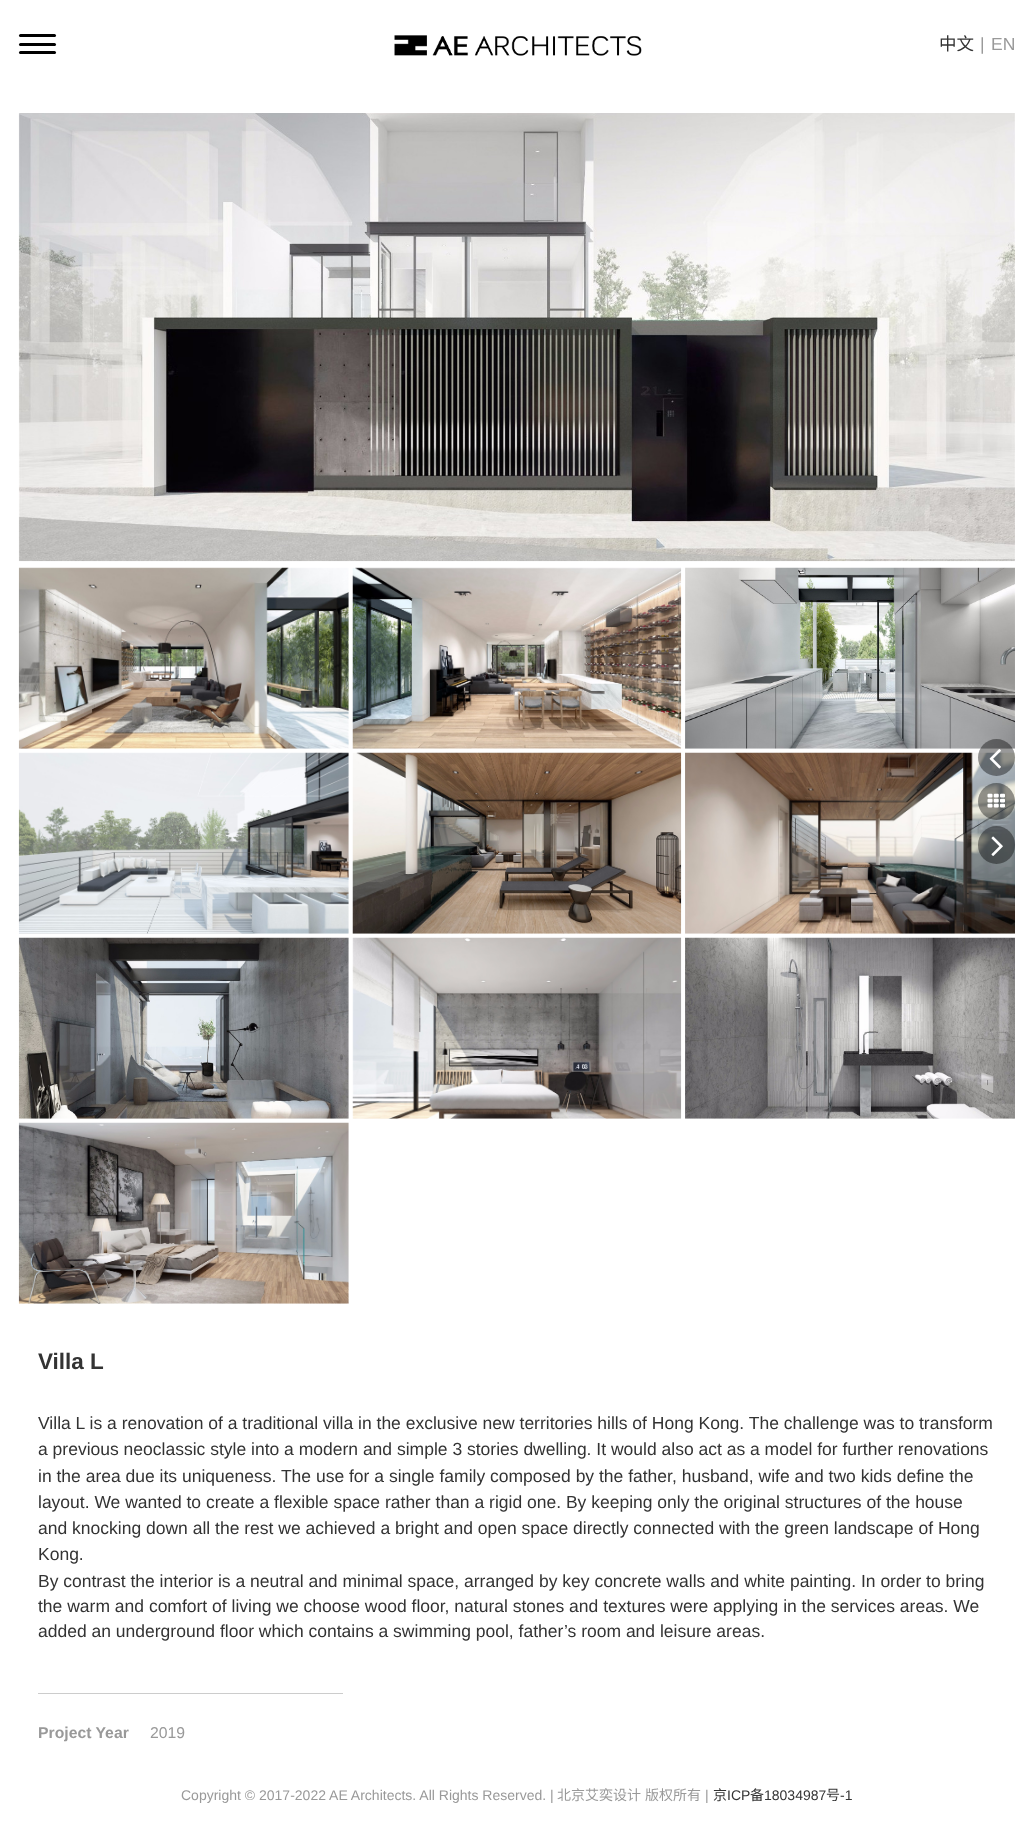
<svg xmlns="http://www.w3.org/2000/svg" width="1033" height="1830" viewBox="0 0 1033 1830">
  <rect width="100%" height="100%" fill="rgb(255,255,255)"/>
  <rect x="19" y="34" width="37" height="3" rx="1.5" fill="rgb(0,0,0)"/>
  <rect x="19" y="43" width="37" height="3" rx="1.5" fill="rgb(0,0,0)"/>
  <rect x="19" y="51" width="37" height="3" rx="1.5" fill="rgb(0,0,0)"/>
  <image x="394" y="35" width="248" height="21" href="pic1.png"/>
  <text x="939" y="50" font-family="Noto Sans CJK SC" font-size="17.5" fill="rgb(51,51,51)">中文</text>
  <g font-family="Liberation Sans" font-size="17.5" fill="rgb(153,153,153)">
    <text x="980" y="50">|</text>
    <text x="991" y="50">EN</text>
  </g>
  <image x="685" y="567" width="330" height="182" href="pic8.png"/>
  <image x="685" y="752" width="330" height="182" href="pic11.png"/>
  <circle cx="996.5" cy="757.5" r="18.5" fill="rgba(0,0,0,0.4)"/>
  <image x="989" y="749" width="12" height="20" href="pic2.png"/>
  <circle cx="996.5" cy="801.5" r="18.5" fill="rgba(0,0,0,0.4)"/>
  <image x="987" y="793" width="18" height="15" href="pic3.png"/>
  <rect x="978" y="826" width="37" height="38" rx="18.5" fill="rgba(0,0,0,0.4)"/>
  <image x="991" y="836" width="12" height="20" href="pic4.png"/>
  <image x="18" y="113" width="997" height="449" href="pic5.png"/>
  <image x="18" y="567" width="331" height="182" href="pic6.png"/>
  <image x="352" y="567" width="330" height="182" href="pic7.png"/>
  <image x="18" y="752" width="331" height="182" href="pic9.png"/>
  <image x="352" y="752" width="330" height="182" href="pic10.png"/>
  <image x="18" y="937" width="331" height="182" href="pic12.png"/>
  <image x="352" y="937" width="330" height="182" href="pic13.png"/>
  <image x="685" y="937" width="330" height="182" href="pic14.png"/>
  <image x="18" y="1122" width="331" height="182" href="pic15.png"/>
  <text x="38" y="1369" font-family="Liberation Sans" font-size="22.5" font-weight="bold" fill="rgb(51,51,51)">Villa L</text>
  <g font-family="Liberation Sans" font-size="17.5" fill="rgb(51,51,51)">
    <text>
      <tspan x="38" y="1429">Villa L is a renovation of a traditional villa in the exclusive new territories hills of Hong Kong. The challenge was to transform</tspan>
      <tspan x="38" y="1455">a previous neoclassic style into a modern and simple 3 stories dwelling. It would also act as a model for further renovations</tspan>
      <tspan x="38" y="1482">in the area due its uniqueness. The use for a single family composed by the father, husband, wife and two kids define the</tspan>
      <tspan x="38" y="1508">layout. We wanted to create a flexible space rather than a rigid one. By keeping only the original structures of the house</tspan>
      <tspan x="38" y="1534">and knocking down all the rest we achieved a bright and open space directly connected with the green landscape of Hong</tspan>
      <tspan x="38" y="1560">Kong.</tspan>
      <tspan x="38" y="1587">By contrast the interior is a neutral and minimal space, arranged by key concrete walls and white painting. In order to bring</tspan>
      <tspan x="38" y="1612">the warm and comfort of living we choose wood floor, natural stones and textures were applying in the services areas. We</tspan>
      <tspan x="38" y="1637">added an underground floor which contains a swimming pool, father’s room and leisure areas.</tspan>
    </text>
  </g>
  <rect x="38" y="1693" width="305" height="1" fill="rgb(204,204,204)"/>
  <text x="38" y="1738" font-family="Liberation Sans" font-size="15.75" font-weight="bold" fill="rgb(153,153,153)">Project Year</text>
  <text x="150" y="1738" font-family="Liberation Sans" font-size="15.75" fill="rgb(153,153,153)">2019</text>
  <text x="181" y="1800" font-family="Liberation Sans" font-size="14" fill="rgb(153,153,153)">Copyright © 2017-2022 AE Architects. All Rights Reserved. |</text>
  <g font-family="Noto Sans CJK SC" font-size="14" fill="rgb(153,153,153)">
    <text x="557" y="1800">北京艾奕设计</text>
    <text x="645" y="1800">版权所有</text>
  </g>
  <text x="705" y="1800" font-family="Liberation Sans" font-size="14" fill="rgb(153,153,153)">|</text>
  <text x="713" y="1800" font-family="Noto Sans CJK SC" font-size="14" fill="rgb(51,51,51)">京</text>
  <text x="727" y="1800" font-family="Liberation Sans" font-size="14" fill="rgb(51,51,51)">ICP</text>
  <text x="750" y="1800" font-family="Noto Sans CJK SC" font-size="14" fill="rgb(51,51,51)">备</text>
  <text x="764" y="1800" font-family="Liberation Sans" font-size="14" fill="rgb(51,51,51)">18034987</text>
  <text x="826" y="1800" font-family="Noto Sans CJK SC" font-size="14" fill="rgb(51,51,51)">号</text>
  <text x="840" y="1800" font-family="Liberation Sans" font-size="14" fill="rgb(51,51,51)">-1</text>
</svg>
